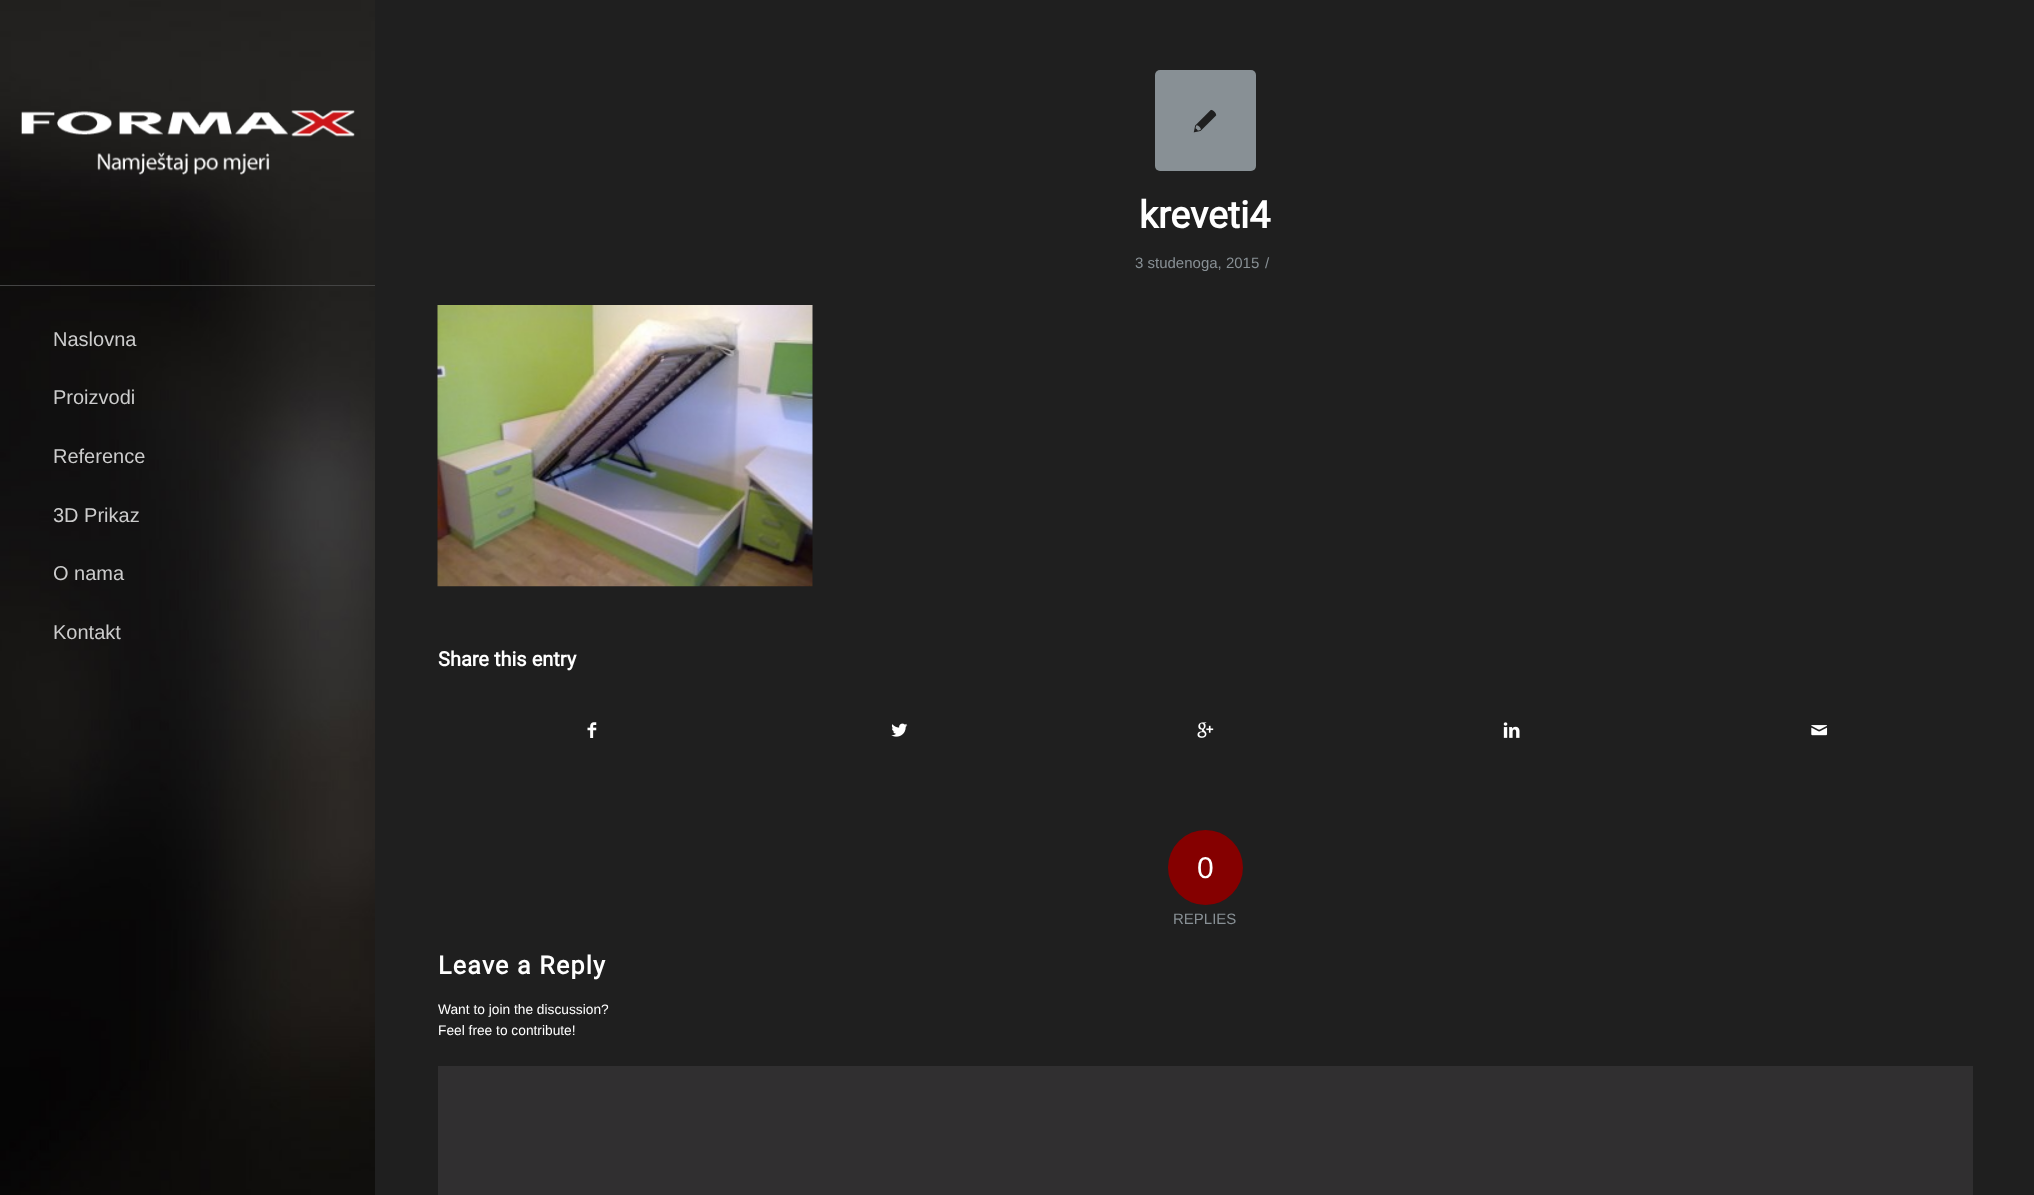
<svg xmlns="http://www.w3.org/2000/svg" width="2034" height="1195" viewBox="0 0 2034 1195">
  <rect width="100%" height="100%" fill="rgb(31,31,31)"/>
  <image x="0" y="0" width="375" height="1195" href="pic1.png"/>
  <rect x="0" y="285" width="375" height="1" fill="rgb(68,68,68)"/>
  <image x="21" y="110" width="334" height="65" href="pic2.png"/>
  <g font-family="Liberation Sans" font-size="20" fill="rgb(204,204,204)">
    <text x="53" y="346">Naslovna</text>
    <text x="53" y="404">Proizvodi</text>
    <text x="53" y="463">Reference</text>
    <text x="53" y="522">3D Prikaz</text>
    <text x="53" y="580">O nama</text>
    <text x="53" y="639">Kontakt</text>
  </g>
  <rect x="1155" y="70" width="101" height="101" rx="5" fill="rgb(136,144,149)"/>
  <image x="1193" y="109" width="24" height="24" href="pic3.png"/>
  <text x="1139" y="228" font-family="Roboto" font-size="37.5" font-weight="bold" fill="rgb(255,255,255)">kreveti4</text>
  <g font-family="Liberation Sans" font-size="15" fill="rgb(136,144,149)">
    <text x="1135" y="268">3 studenoga, 2015</text>
    <text x="1265" y="268">/</text>
  </g>
  <image x="437" y="305" width="376" height="282" href="pic4.png"/>
  <text x="438" y="666" font-family="Roboto" font-size="20" font-weight="bold" fill="rgb(255,255,255)">Share this entry</text>
  <image x="587" y="722" width="10" height="16" href="pic5.png"/>
  <image x="891" y="723" width="17" height="14" href="pic6.png"/>
  <image x="1197" y="722" width="17" height="16" href="pic7.png"/>
  <image x="1503" y="722" width="17" height="16" href="pic8.png"/>
  <image x="1811" y="725" width="17" height="11" href="pic9.png"/>
  <circle cx="1205.5" cy="867.5" r="37.5" fill="rgb(133,0,0)"/>
  <text x="1197" y="878" font-family="Liberation Sans" font-size="30" fill="rgb(255,255,255)">0</text>
  <text x="1173" y="924" font-family="Liberation Sans" font-size="15" fill="rgb(136,144,149)">REPLIES</text>
  <text x="438" y="974" font-family="Roboto" font-size="25" font-weight="bold" letter-spacing="1.25" fill="rgb(255,255,255)">Leave a Reply</text>
  <g font-family="Liberation Sans" font-size="13.75" fill="rgb(255,255,255)">
    <text>
      <tspan x="438" y="1014">Want to join the discussion?</tspan>
      <tspan x="438" y="1035">Feel free to contribute!</tspan>
    </text>
  </g>
  <rect x="438" y="1066" width="1535" height="129" fill="rgb(48,47,48)"/>
</svg>
